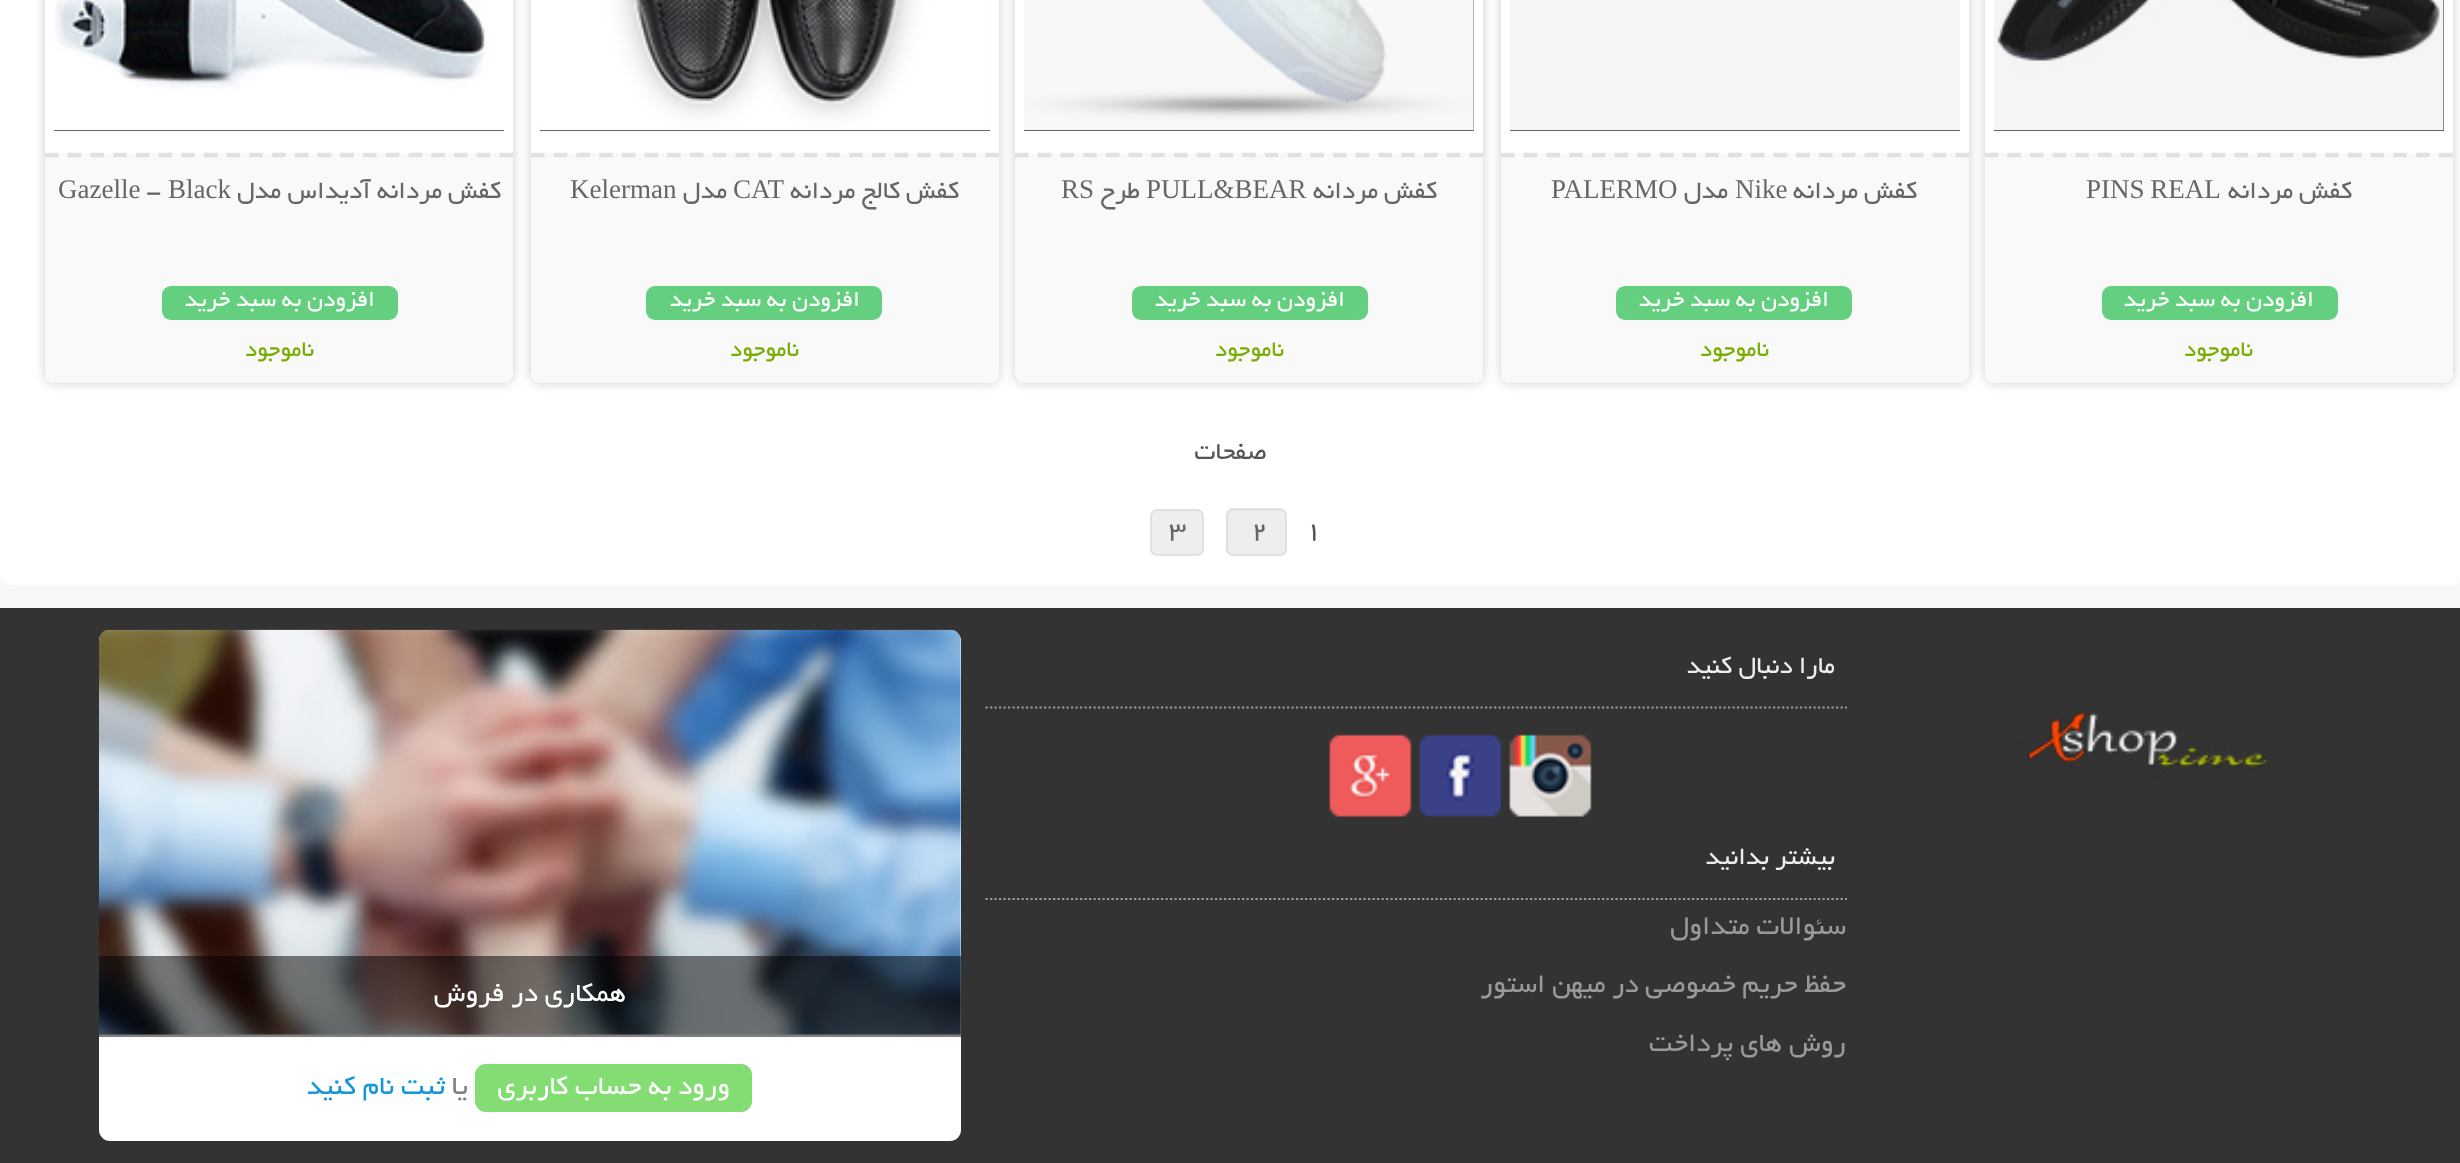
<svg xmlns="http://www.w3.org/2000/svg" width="2460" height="1163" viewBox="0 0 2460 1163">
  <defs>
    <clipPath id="clip1"><rect x="1985" y="-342" width="468" height="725" rx="9"/></clipPath>
  </defs>
  <rect width="100%" height="100%" fill="rgb(248,248,248)"/>
  <rect x="0" y="-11" width="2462" height="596" rx="11" fill="rgb(255,255,255)"/>
  <rect x="1985" y="-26" width="468" height="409" rx="9" fill="rgb(204,204,204)" filter="blur(5.5px)"/>
  <rect x="1985" y="-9" width="468" height="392" rx="9" fill="rgb(255,255,255)"/>
  <rect x="1994" y="0" width="450" height="131" fill="rgb(102,102,102)"/>
  <image x="1994" y="0" width="450" height="130" href="pic1.png"/>
  <path d="M1985 153H2453V374C2453 379 2449 383 2444 383H1994C1989 383 1985 379 1985 374Z" fill="rgb(249,249,249)"/>
  <g clip-path="url(#clip1)">
    <path d="M1984.5 155H2452.5" fill="none" stroke="rgb(225,225,225)" stroke-width="4.5" stroke-dasharray="13.5 9.22"/>
  </g>
  <text x="2352" y="198" font-family="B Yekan" font-size="27" direction="rtl" fill="rgb(102,102,102)">کفش مردانه</text>
  <text x="2086" y="198" word-spacing="-1" font-family="Liberation Serif" font-size="27" fill="rgb(102,102,102)">PINS REAL</text>
  <rect x="2102" y="286" width="236" height="34" rx="9" fill="rgb(100,207,127)"/>
  <text x="2314" y="306" font-family="B Yekan" font-size="24.75" direction="rtl" fill="rgb(255,255,255)">افزودن به سبد خرید</text>
  <text x="2253" y="356" font-family="B Yekan" font-size="24.75" direction="rtl" fill="rgb(120,173,0)">ناموجود</text>
  <rect x="1501" y="-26" width="468" height="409" rx="9" fill="rgb(204,204,204)" filter="blur(5.5px)"/>
  <rect x="1501" y="-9" width="468" height="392" rx="9" fill="rgb(255,255,255)"/>
  <rect x="1510" y="130" width="450" height="1" fill="rgb(102,102,102)"/>
  <rect x="1510" y="0" width="450" height="130" fill="rgb(245,245,245)"/>
  <path d="M1501 153H1969V374C1969 379 1965 383 1960 383H1510C1505 383 1501 379 1501 374Z" fill="rgb(249,249,249)"/>
  <path d="M1501 155H1969" fill="none" stroke="rgb(225,225,225)" stroke-width="4.5" stroke-dasharray="13.5 9.22"/>
  <text x="1917" y="198" font-family="B Yekan" font-size="27" direction="rtl" fill="rgb(102,102,102)">کفش مردانه</text>
  <text x="1735" y="198" font-family="Liberation Serif" font-size="27" fill="rgb(102,102,102)">Nike</text>
  <text x="1728" y="198" font-family="B Yekan" font-size="27" direction="rtl" fill="rgb(102,102,102)">مدل</text>
  <text x="1551" y="198" font-family="Liberation Serif" font-size="27" fill="rgb(102,102,102)">PALERMO</text>
  <rect x="1616" y="286" width="236" height="34" rx="9" fill="rgb(100,207,127)"/>
  <text x="1829" y="306" font-family="B Yekan" font-size="24.75" direction="rtl" fill="rgb(255,255,255)">افزودن به سبد خرید</text>
  <text x="1769" y="356" font-family="B Yekan" font-size="24.75" direction="rtl" fill="rgb(120,173,0)">ناموجود</text>
  <rect x="1015" y="-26" width="468" height="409" rx="9" fill="rgb(204,204,204)" filter="blur(5.5px)"/>
  <rect x="1015" y="-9" width="468" height="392" rx="9" fill="rgb(255,255,255)"/>
  <rect x="1024" y="0" width="450" height="131" fill="rgb(102,102,102)"/>
  <image x="1024" y="0" width="450" height="130" href="pic2.png"/>
  <path d="M1015 153H1483V374C1483 379 1479 383 1474 383H1024C1019 383 1015 379 1015 374Z" fill="rgb(249,249,249)"/>
  <path d="M1015 155H1483" fill="none" stroke="rgb(225,225,225)" stroke-width="4.5" stroke-dasharray="13.5 9.22"/>
  <text x="1437" y="198" font-family="B Yekan" font-size="27" direction="rtl" fill="rgb(102,102,102)">کفش مردانه</text>
  <text x="1146" y="198" font-family="Liberation Serif" font-size="27" fill="rgb(102,102,102)">PULL&amp;BEAR</text>
  <text x="1140" y="198" font-family="B Yekan" font-size="27" direction="rtl" fill="rgb(102,102,102)">طرح</text>
  <text x="1061" y="198" font-family="Liberation Serif" font-size="27" fill="rgb(102,102,102)">RS</text>
  <rect x="1132" y="286" width="236" height="34" rx="9" fill="rgb(100,207,127)"/>
  <text x="1345" y="306" font-family="B Yekan" font-size="24.75" direction="rtl" fill="rgb(255,255,255)">افزودن به سبد خرید</text>
  <text x="1284" y="356" font-family="B Yekan" font-size="24.75" direction="rtl" fill="rgb(120,173,0)">ناموجود</text>
  <rect x="531" y="-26" width="468" height="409" rx="9" fill="rgb(204,204,204)" filter="blur(5.5px)"/>
  <rect x="531" y="-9" width="468" height="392" rx="9" fill="rgb(255,255,255)"/>
  <rect x="540" y="130" width="450" height="1" fill="rgb(102,102,102)"/>
  <image x="540" y="0" width="450" height="130" href="pic3.png"/>
  <path d="M531 153H999V374C999 379 995 383 990 383H540C535 383 531 379 531 374Z" fill="rgb(249,249,249)"/>
  <path d="M531 155H999" fill="none" stroke="rgb(225,225,225)" stroke-width="4.5" stroke-dasharray="13.5 9.22"/>
  <text x="959" y="198" font-family="B Yekan" font-size="27" direction="rtl" fill="rgb(102,102,102)">کفش کالج مردانه</text>
  <text x="733" y="198" font-family="Liberation Serif" font-size="27" fill="rgb(102,102,102)">CAT</text>
  <text x="727" y="198" font-family="B Yekan" font-size="27" direction="rtl" fill="rgb(102,102,102)">مدل</text>
  <text x="570" y="198" font-family="Liberation Serif" font-size="27" fill="rgb(102,102,102)">Kelerman</text>
  <rect x="646" y="286" width="236" height="34" rx="9" fill="rgb(100,207,127)"/>
  <text x="860" y="306" font-family="B Yekan" font-size="24.75" direction="rtl" fill="rgb(255,255,255)">افزودن به سبد خرید</text>
  <text x="799" y="356" font-family="B Yekan" font-size="24.75" direction="rtl" fill="rgb(120,173,0)">ناموجود</text>
  <rect x="45" y="-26" width="468" height="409" rx="9" fill="rgb(204,204,204)" filter="blur(5.5px)"/>
  <rect x="45" y="-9" width="468" height="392" rx="9" fill="rgb(255,255,255)"/>
  <rect x="54" y="130" width="450" height="1" fill="rgb(102,102,102)"/>
  <image x="54" y="0" width="450" height="130" href="pic4.png"/>
  <path d="M45 153H513V374C513 379 509 383 504 383H54C49 383 45 379 45 374Z" fill="rgb(249,249,249)"/>
  <path d="M45 155H513" fill="none" stroke="rgb(225,225,225)" stroke-width="4.5" stroke-dasharray="13.5 9.22"/>
  <text x="501" y="198" font-family="B Yekan" font-size="27" direction="rtl" fill="rgb(102,102,102)">کفش مردانه آدیداس مدل</text>
  <text x="168" y="198" font-family="Liberation Serif" font-size="27" fill="rgb(102,102,102)">Black</text>
  <text x="146" y="198" font-family="B Yekan" font-size="27" fill="rgb(102,102,102)">-</text>
  <text x="58" y="198" font-family="Liberation Serif" font-size="27" fill="rgb(102,102,102)">Gazelle</text>
  <rect x="162" y="286" width="236" height="34" rx="9" fill="rgb(100,207,127)"/>
  <text x="375" y="306" font-family="B Yekan" font-size="24.75" direction="rtl" fill="rgb(255,255,255)">افزودن به سبد خرید</text>
  <text x="314" y="356" font-family="B Yekan" font-size="24.75" direction="rtl" fill="rgb(120,173,0)">ناموجود</text>
  <text x="1267" y="459" font-family="B Yekan" font-size="27" direction="rtl" fill="rgb(85,85,85)">صفحات</text>
  <text x="1305" y="538" font-family="B Yekan" font-size="29.25" fill="rgb(85,85,85)">1</text>
  <path d="M1251 509H1280C1284 509 1287 512 1287 516V549C1287 553 1284 556 1280 556H1251Z" fill="rgb(238,238,238)"/>
  <path d="M1251 508H1280C1284 508 1287 512 1287 515V549C1287 553 1284 556 1280 556H1251ZM1251 511H1280C1283 511 1285 513 1285 515V549C1285 551 1283 554 1280 554H1251Z" fill="rgb(225,225,225)" fill-rule="evenodd"/>
  <text x="1251" y="538" font-family="B Yekan" font-size="29.25" fill="rgb(102,102,102)">2</text>
  <path d="M1233 509H1251V556H1233C1229 556 1226 553 1226 549V516C1226 512 1229 509 1233 509Z" fill="rgb(238,238,238)"/>
  <path d="M1233 508H1251V556H1233C1229 556 1226 553 1226 549V515C1226 512 1229 508 1233 508ZM1233 511H1251V554H1233C1231 554 1228 551 1228 549V515C1228 513 1231 511 1233 511Z" fill="rgb(225,225,225)" fill-rule="evenodd"/>
  <rect x="1151" y="510" width="52" height="45" rx="6" fill="rgb(238,238,238)" stroke="rgb(225,225,225)" stroke-width="2"/>
  <text x="1169" y="538" font-family="B Yekan" font-size="29.25" fill="rgb(102,102,102)">3</text>
  <rect x="0" y="608" width="2460" height="555" fill="rgb(51,51,51)"/>
  <image x="2014" y="689" width="281" height="105" href="pic5.png"/>
  <path d="M985.5 707.5H1847" fill="none" stroke="rgb(153,153,153)" stroke-width="2.2" stroke-dasharray="2.25 2.25"/>
  <text x="1835" y="673" font-family="B Yekan" font-size="27" direction="rtl" fill="rgb(238,238,238)">مارا دنبال کنید</text>
  <image x="1509" y="734" width="83" height="83" href="pic6.png"/>
  <image x="1419" y="734" width="83" height="83" href="pic7.png"/>
  <image x="1329" y="734" width="83" height="83" href="pic8.png"/>
  <path d="M985.5 899H1847" fill="none" stroke="rgb(153,153,153)" stroke-width="2.2" stroke-dasharray="2.25 2.25"/>
  <text x="1835" y="864" font-family="B Yekan" font-size="27" direction="rtl" fill="rgb(238,238,238)">بیشتر بدانید</text>
  <g font-family="B Yekan" font-size="29.25" direction="rtl" fill="rgb(153,153,153)">
    <text>
      <tspan x="1846" y="934">سئوالات متداول</tspan>
      <tspan x="1846" y="992">حفظ حریم خصوصی در میهن استور</tspan>
    </text>
    <text x="1846" y="1051">روش های پرداخت</text>
  </g>
  <rect x="99" y="630" width="862" height="511" rx="11" fill="rgb(255,255,255)"/>
  <image x="99" y="629" width="862" height="406" href="pic9.png"/>
  <rect x="99" y="956" width="862" height="81" fill="rgba(0,0,0,0.5)"/>
  <text x="626" y="1001" font-family="B Yekan" font-size="29.25" direction="rtl" fill="rgb(255,255,255)">همکاری در فروش</text>
  <rect x="475" y="1064" width="277" height="48" rx="11" fill="rgb(131,221,115)"/>
  <text x="730" y="1094" font-family="B Yekan" font-size="29.25" direction="rtl" fill="rgb(255,255,255)">ورود به حساب کاربری</text>
  <text x="468" y="1094" font-family="B Yekan" font-size="29.25" direction="rtl" fill="rgb(128,128,128)">یا</text>
  <text x="445" y="1094" font-family="B Yekan" font-size="29.25" direction="rtl" fill="rgb(21,150,219)">ثبت نام کنید</text>
</svg>
